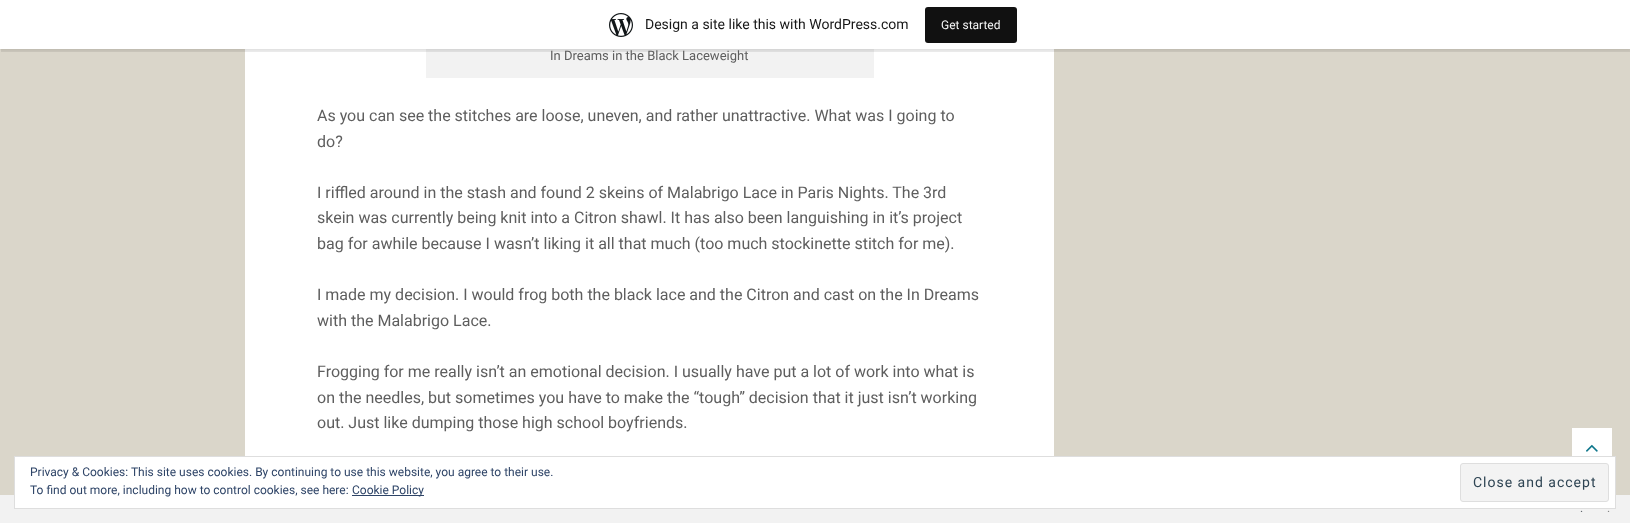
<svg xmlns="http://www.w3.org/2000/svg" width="1630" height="523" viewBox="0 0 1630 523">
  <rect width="100%" height="100%" fill="rgb(218,214,202)"/>
  <rect x="245" y="49" width="809" height="407" fill="rgb(255,255,255)"/>
  <rect x="426" y="49" width="448" height="29" fill="rgb(242,242,242)"/>
  <rect x="0" y="1" width="1630" height="49" fill="rgba(0,0,0,0.05)" filter="blur(1px)"/>
  <path d="M1 49V52H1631V3H1630V49Z" fill="rgba(0,0,0,0.08)"/>
  <rect x="0" y="0" width="1630" height="49" fill="rgb(255,255,255)"/>
  <image x="609" y="13" width="24" height="24" href="pic1.png"/>
  <text x="645" y="29" font-family="Roboto" font-size="14" fill="rgb(23,23,23)">Design a site like this with WordPress.com</text>
  <rect x="925" y="7" width="92" height="36" rx="3" fill="rgb(17,17,17)"/>
  <text x="941" y="29" font-family="Roboto" font-size="12" fill="rgb(246,247,247)">Get started</text>
  <text x="550" y="60" font-family="Roboto" font-size="13" fill="rgb(94,94,94)">In Dreams in the Black Laceweight</text>
  <g font-family="Roboto" font-size="16" fill="rgb(94,94,94)">
    <text>
      <tspan x="317" y="121">As you can see the stitches are loose, uneven, and rather unattractive. What was I going to</tspan>
      <tspan x="317" y="147">do?</tspan>
    </text>
    <text>
      <tspan x="317" y="198">I riffled around in the stash and found 2 skeins of Malabrigo Lace in Paris Nights. The 3rd</tspan>
      <tspan x="317" y="223">skein was currently being knit into a Citron shawl. It has also been languishing in it’s project</tspan>
      <tspan x="317" y="249">bag for awhile because I wasn’t liking it all that much (too much stockinette stitch for me).</tspan>
    </text>
    <text>
      <tspan x="317" y="300">I made my decision. I would frog both the black lace and the Citron and cast on the In Dreams</tspan>
      <tspan x="317" y="326">with the Malabrigo Lace.</tspan>
    </text>
    <text>
      <tspan x="317" y="377">Frogging for me really isn’t an emotional decision. I usually have put a lot of work into what is</tspan>
      <tspan x="317" y="403">on the needles, but sometimes you have to make the “tough” decision that it just isn’t working</tspan>
      <tspan x="317" y="428">out. Just like dumping those high school boyfriends.</tspan>
    </text>
  </g>
  <rect x="1572" y="428" width="40" height="28" fill="rgb(255,255,255)"/>
  <image x="1586" y="444" width="12" height="8" href="pic2.png"/>
  <rect x="0" y="495" width="1630" height="28" fill="rgb(242,242,242)"/>
  <rect x="14.5" y="456.5" width="1601" height="52" fill="rgb(255,255,255)" stroke="rgb(222,222,222)"/>
  <g font-family="Roboto" font-size="12" fill="rgb(46,68,103)">
    <text>
      <tspan x="30" y="476">Privacy &amp; Cookies: This site uses cookies. By continuing to use this website, you agree to their use.</tspan>
      <tspan x="30" y="494">To find out more, including how to control cookies, see here:</tspan>
    </text>
  </g>
  <rect x="352" y="495" width="72" height="1" fill="rgb(46,68,103)"/>
  <text x="352" y="494" font-family="Roboto" font-size="12" fill="rgb(46,68,103)">Cookie Policy</text>
  <rect x="1460.5" y="463.5" width="148" height="38" rx="2.5" fill="rgb(243,243,243)" stroke="rgb(222,222,222)"/>
  <text x="1473" y="487" font-family="Roboto" font-size="14" letter-spacing="1" fill="rgb(46,68,83)">Close and accept</text>
  <text x="1580" y="512" font-family="Roboto" font-size="12" fill="rgb(100,105,112)">.</text>
  <text x="1607" y="512" font-family="Roboto" font-size="12" fill="rgb(136,136,136)">.</text>
</svg>
